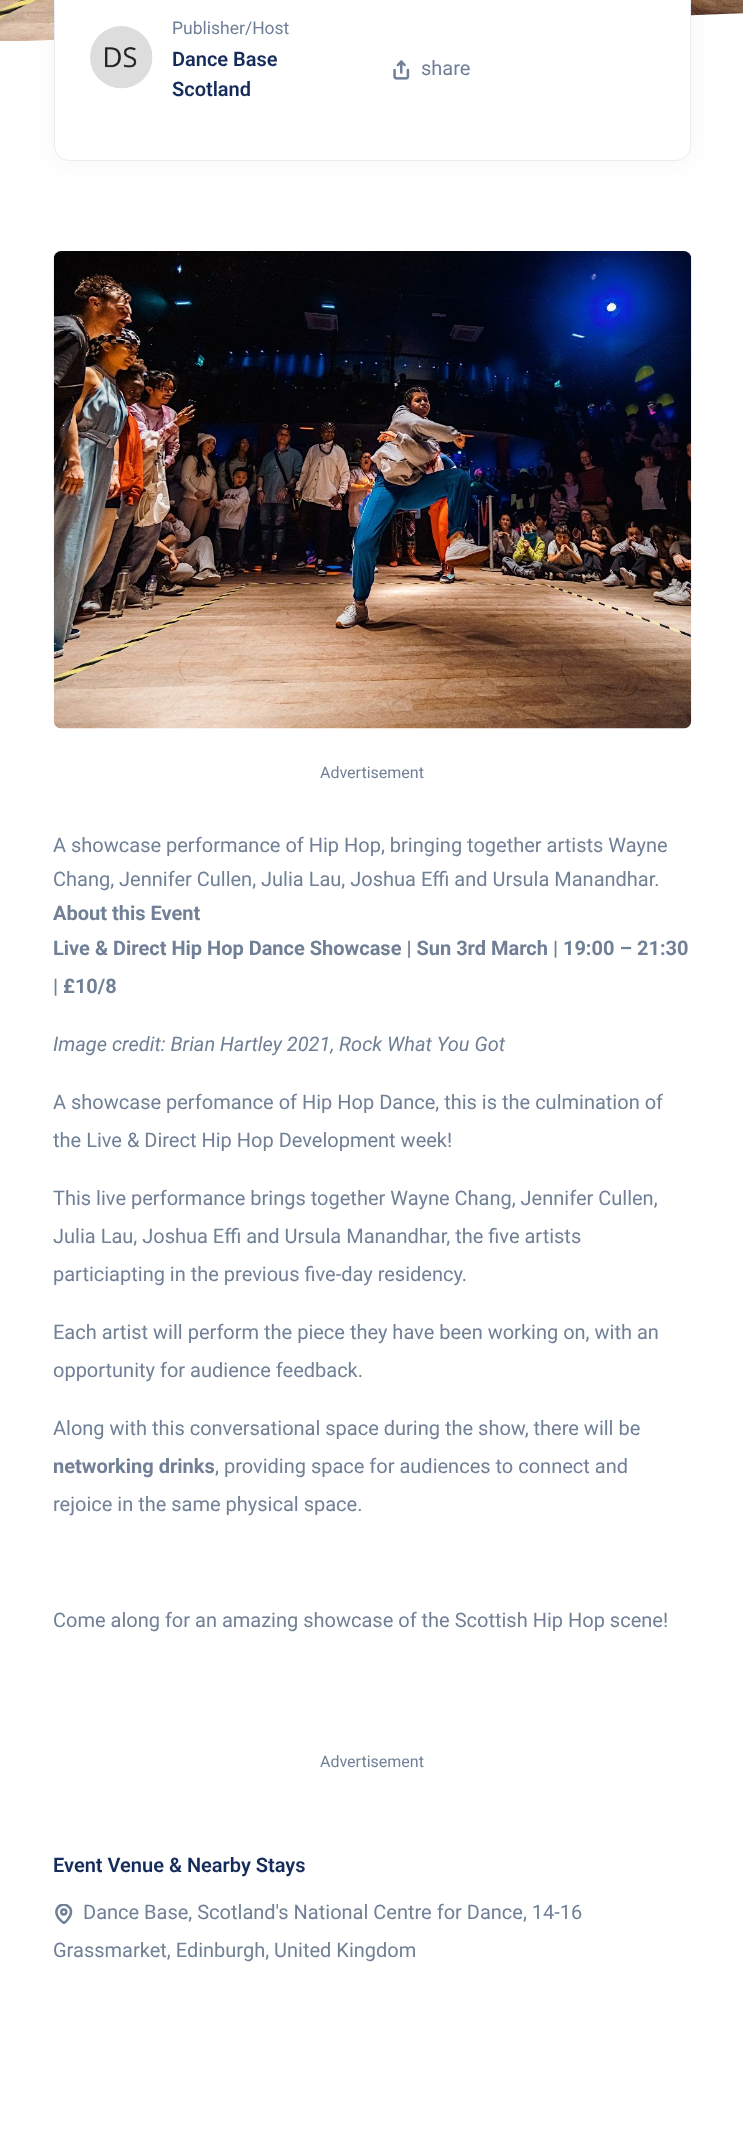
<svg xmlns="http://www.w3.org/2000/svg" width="743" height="2154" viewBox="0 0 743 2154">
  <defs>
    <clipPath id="clip1"><rect x="54" y="1904" width="20" height="20"/></clipPath>
  </defs>
  <rect width="100%" height="100%" fill="rgb(255,255,255)"/>
  <image x="0" y="0" width="743" height="41" href="pic1.png"/>
  <path d="M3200-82V42H0Z" fill="rgb(255,255,255)"/>
  <rect x="54" y="-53" width="637" height="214" rx="15" fill="rgba(31,45,61,0.05)" filter="blur(12.5px)"/>
  <rect x="54.5" y="-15.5" width="636" height="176" rx="14.5" fill="rgb(255,255,255)" stroke="rgb(234,236,243)"/>
  <image x="90" y="26" width="63" height="63" href="pic2.png"/>
  <text x="172" y="34" font-family="Roboto" font-size="17.5" fill="rgb(113,128,150)">Publisher/Host</text>
  <g font-family="Roboto" font-size="20" font-weight="600" fill="rgb(21,44,91)">
    <text>
      <tspan x="172" y="66">Dance Base</tspan>
      <tspan x="172" y="96">Scotland</tspan>
    </text>
  </g>
  <image x="393" y="60" width="17" height="20" href="pic3.png"/>
  <text x="421" y="75" font-family="Roboto" font-size="20" fill="rgb(113,128,150)">share</text>
  <image x="53" y="251" width="639" height="478" href="pic4.png"/>
  <text x="320" y="778" font-family="Roboto" font-size="16" fill="rgb(113,128,150)">Advertisement</text>
  <g font-family="Roboto" font-size="20" fill="rgb(113,128,150)">
    <text>
      <tspan x="53" y="852">A showcase performance of Hip Hop, bringing together artists Wayne</tspan>
      <tspan x="53" y="886">Chang, Jennifer Cullen, Julia Lau, Joshua Effi and Ursula Manandhar.</tspan>
    </text>
  </g>
  <g font-family="Roboto" font-size="20" font-weight="bold" fill="rgb(113,128,150)">
    <text>
      <tspan x="53" y="920">About this Event</tspan>
      <tspan x="53" y="955">Live &amp; Direct Hip Hop Dance Showcase | Sun 3rd March | 19:00 – 21:30</tspan>
      <tspan x="53" y="993">| £10/8</tspan>
    </text>
  </g>
  <text x="53" y="1051" font-family="Roboto" font-size="20" font-style="italic" fill="rgb(113,128,150)">Image credit: Brian Hartley 2021, Rock What You Got</text>
  <g font-family="Roboto" font-size="20" fill="rgb(113,128,150)">
    <text>
      <tspan x="53" y="1109">A showcase perfomance of Hip Hop Dance, this is the culmination of</tspan>
      <tspan x="53" y="1147">the Live &amp; Direct Hip Hop Development week!</tspan>
    </text>
    <text>
      <tspan x="53" y="1205">This live performance brings together Wayne Chang, Jennifer Cullen,</tspan>
      <tspan x="53" y="1243">Julia Lau, Joshua Effi and Ursula Manandhar, the five artists</tspan>
      <tspan x="53" y="1281">particiapting in the previous five-day residency.</tspan>
    </text>
    <text>
      <tspan x="53" y="1339">Each artist will perform the piece they have been working on, with an</tspan>
      <tspan x="53" y="1377">opportunity for audience feedback.</tspan>
    </text>
    <text x="53" y="1435">Along with this conversational space during the show, there will be</text>
  </g>
  <text x="53" y="1473" font-family="Roboto" font-size="20" font-weight="bold" fill="rgb(113,128,150)">networking drinks</text>
  <g font-family="Roboto" font-size="20" fill="rgb(113,128,150)">
    <text x="215" y="1473">, providing space for audiences to connect and</text>
    <text x="53" y="1511">rejoice in the same physical space.</text>
    <text x="53" y="1627">Come along for an amazing showcase of the Scottish Hip Hop scene!</text>
  </g>
  <text x="320" y="1767" font-family="Roboto" font-size="16" fill="rgb(113,128,150)">Advertisement</text>
  <text x="53" y="1872" font-family="Roboto" font-size="20" font-weight="600" fill="rgb(21,44,91)">Event Venue &amp; Nearby Stays</text>
  <g clip-path="url(#clip1)">
    <path d="M71 1912C71 1918 64 1923 64 1923C48 1912.5 61 1899 69 1907C70.5 1908 71 1910 71 1912Z" fill="none" stroke="rgb(113,128,150)" stroke-width="2.5" stroke-linecap="round" stroke-linejoin="round"/>
  </g>
  <text x="83" y="1919" font-family="Roboto" font-size="20" fill="rgb(113,128,150)">Dance Base, Scotland's National Centre for Dance, 14-16</text>
  <circle cx="63.8" cy="1912.1" r="2.5" fill="none" stroke="rgb(113,128,150)" stroke-width="2.5"/>
  <text x="53" y="1957" font-family="Roboto" font-size="20" fill="rgb(113,128,150)">Grassmarket, Edinburgh, United Kingdom</text>
</svg>
